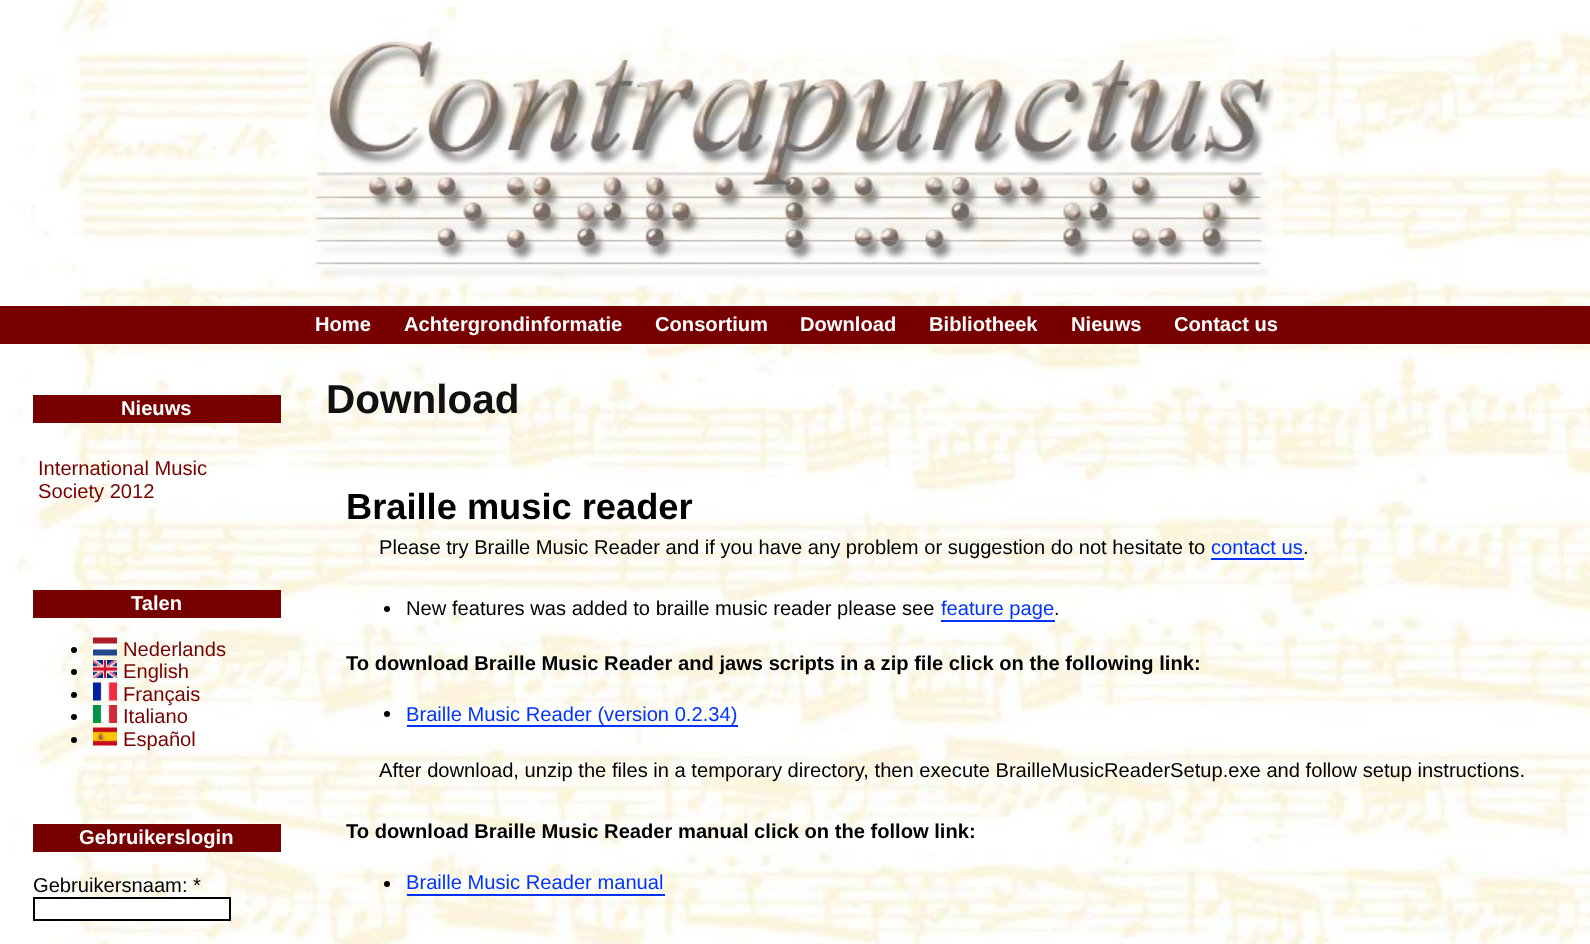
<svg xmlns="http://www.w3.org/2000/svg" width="1590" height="944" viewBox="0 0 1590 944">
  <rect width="100%" height="100%" fill="rgb(255,255,255)"/>
  <image x="12" y="0" width="1578" height="944" href="pic1.png"/>
  <image x="307" y="20" width="976" height="265" href="pic2.png"/>
  <rect x="0" y="306" width="1590" height="38" fill="rgb(119,0,0)"/>
  <g font-family="Liberation Sans" font-size="20.15" font-weight="bold" fill="rgb(255,255,255)">
    <text x="315" y="331">Home</text>
    <text x="404" y="331">Achtergrondinformatie</text>
    <text x="655" y="331">Consortium</text>
    <text x="800" y="331">Download</text>
    <text x="929" y="331">Bibliotheek</text>
    <text x="1071" y="331">Nieuws</text>
    <text x="1174" y="331">Contact us</text>
  </g>
  <rect x="33" y="395" width="248" height="28" fill="rgb(119,0,0)"/>
  <text x="121" y="415" font-family="Liberation Sans" font-size="20.15" font-weight="bold" fill="rgb(255,255,255)">Nieuws</text>
  <g font-family="Liberation Sans" font-size="20.15" fill="rgb(119,0,0)">
    <text>
      <tspan x="38" y="475">International Music</tspan>
      <tspan x="38" y="498">Society 2012</tspan>
    </text>
  </g>
  <rect x="33" y="590" width="248" height="28" fill="rgb(119,0,0)"/>
  <text x="131" y="610" font-family="Liberation Sans" font-size="20.15" font-weight="bold" fill="rgb(255,255,255)">Talen</text>
  <circle cx="74" cy="650" r="3" fill="rgb(0,0,0)"/>
  <image x="93" y="637" width="24" height="19" href="pic3.png"/>
  <text x="123" y="656" font-family="Liberation Sans" font-size="20.15" fill="rgb(119,0,0)">Nederlands</text>
  <circle cx="74" cy="672" r="3" fill="rgb(0,0,0)"/>
  <image x="93" y="660" width="24" height="18" href="pic4.png"/>
  <text x="123" y="678" font-family="Liberation Sans" font-size="20.15" fill="rgb(119,0,0)">English</text>
  <circle cx="74" cy="695" r="3" fill="rgb(0,0,0)"/>
  <image x="93" y="682" width="24" height="19" href="pic5.png"/>
  <text x="123" y="701" font-family="Liberation Sans" font-size="20.15" fill="rgb(119,0,0)">Français</text>
  <circle cx="74" cy="717" r="3" fill="rgb(0,0,0)"/>
  <image x="93" y="705" width="24" height="18" href="pic6.png"/>
  <text x="123" y="723" font-family="Liberation Sans" font-size="20.15" fill="rgb(119,0,0)">Italiano</text>
  <circle cx="74" cy="740" r="3" fill="rgb(0,0,0)"/>
  <image x="93" y="727" width="24" height="19" href="pic7.png"/>
  <text x="123" y="746" font-family="Liberation Sans" font-size="20.15" fill="rgb(119,0,0)">Español</text>
  <rect x="33" y="824" width="248" height="28" fill="rgb(119,0,0)"/>
  <text x="79" y="844" font-family="Liberation Sans" font-size="20.15" font-weight="bold" fill="rgb(255,255,255)">Gebruikerslogin</text>
  <text x="33" y="892" font-family="Liberation Sans" font-size="20.15" fill="rgb(0,0,0)">Gebruikersnaam: *</text>
  <rect x="47" y="899" width="182" height="20" fill="rgb(255,255,255)"/>
  <rect x="34" y="898" width="196" height="22" fill="none" stroke="rgb(0,0,0)" stroke-width="2"/>
  <text x="326" y="413" font-family="Liberation Sans" font-size="40.5" font-weight="bold" fill="rgb(17,17,17)">Download</text>
  <text x="346" y="519" font-family="Liberation Sans" font-size="36.25" font-weight="bold" fill="rgb(0,0,0)">Braille music reader</text>
  <text x="379" y="554" font-family="Liberation Sans" font-size="20.15" fill="rgb(0,0,0)">Please try Braille Music Reader and if you have any problem or suggestion do not hesitate to</text>
  <text x="1211" y="554" font-family="Liberation Sans" font-size="20.15" fill="rgb(0,51,255)">contact us</text>
  <rect x="1211" y="558" width="93" height="2" fill="rgb(0,51,255)"/>
  <text x="1303" y="554" font-family="Liberation Sans" font-size="20.15" fill="rgb(0,0,0)">.</text>
  <circle cx="387" cy="609" r="3" fill="rgb(0,0,0)"/>
  <text x="406" y="615" font-family="Liberation Sans" font-size="20.15" fill="rgb(0,0,0)">New features was added to braille music reader please see</text>
  <text x="941" y="615" font-family="Liberation Sans" font-size="20.15" fill="rgb(0,51,255)">feature page</text>
  <rect x="941" y="620" width="114" height="2" fill="rgb(0,51,255)"/>
  <text x="1054" y="615" font-family="Liberation Sans" font-size="20.15" fill="rgb(0,0,0)">.</text>
  <text x="346" y="670" font-family="Liberation Sans" font-size="20.15" font-weight="bold" fill="rgb(0,0,0)">To download Braille Music Reader and jaws scripts in a zip file click on the following link:</text>
  <circle cx="387" cy="714" r="3" fill="rgb(0,0,0)"/>
  <rect x="407" y="725" width="331" height="2" fill="rgb(0,51,255)"/>
  <text x="406" y="721" font-family="Liberation Sans" font-size="20.15" fill="rgb(0,51,255)">Braille Music Reader (version 0.2.34)</text>
  <text x="379" y="777" font-family="Liberation Sans" font-size="20.15" fill="rgb(0,0,0)">After download, unzip the files in a temporary directory, then execute BrailleMusicReaderSetup.exe and follow setup instructions.</text>
  <text x="346" y="838" font-family="Liberation Sans" font-size="20.15" font-weight="bold" fill="rgb(0,0,0)">To download Braille Music Reader manual click on the follow link:</text>
  <circle cx="387" cy="884" r="3" fill="rgb(0,0,0)"/>
  <text x="406" y="889" font-family="Liberation Sans" font-size="20.15" fill="rgb(0,51,255)">Braille Music Reader manual</text>
  <rect x="407" y="894" width="258" height="2" fill="rgb(0,51,255)"/>
</svg>
